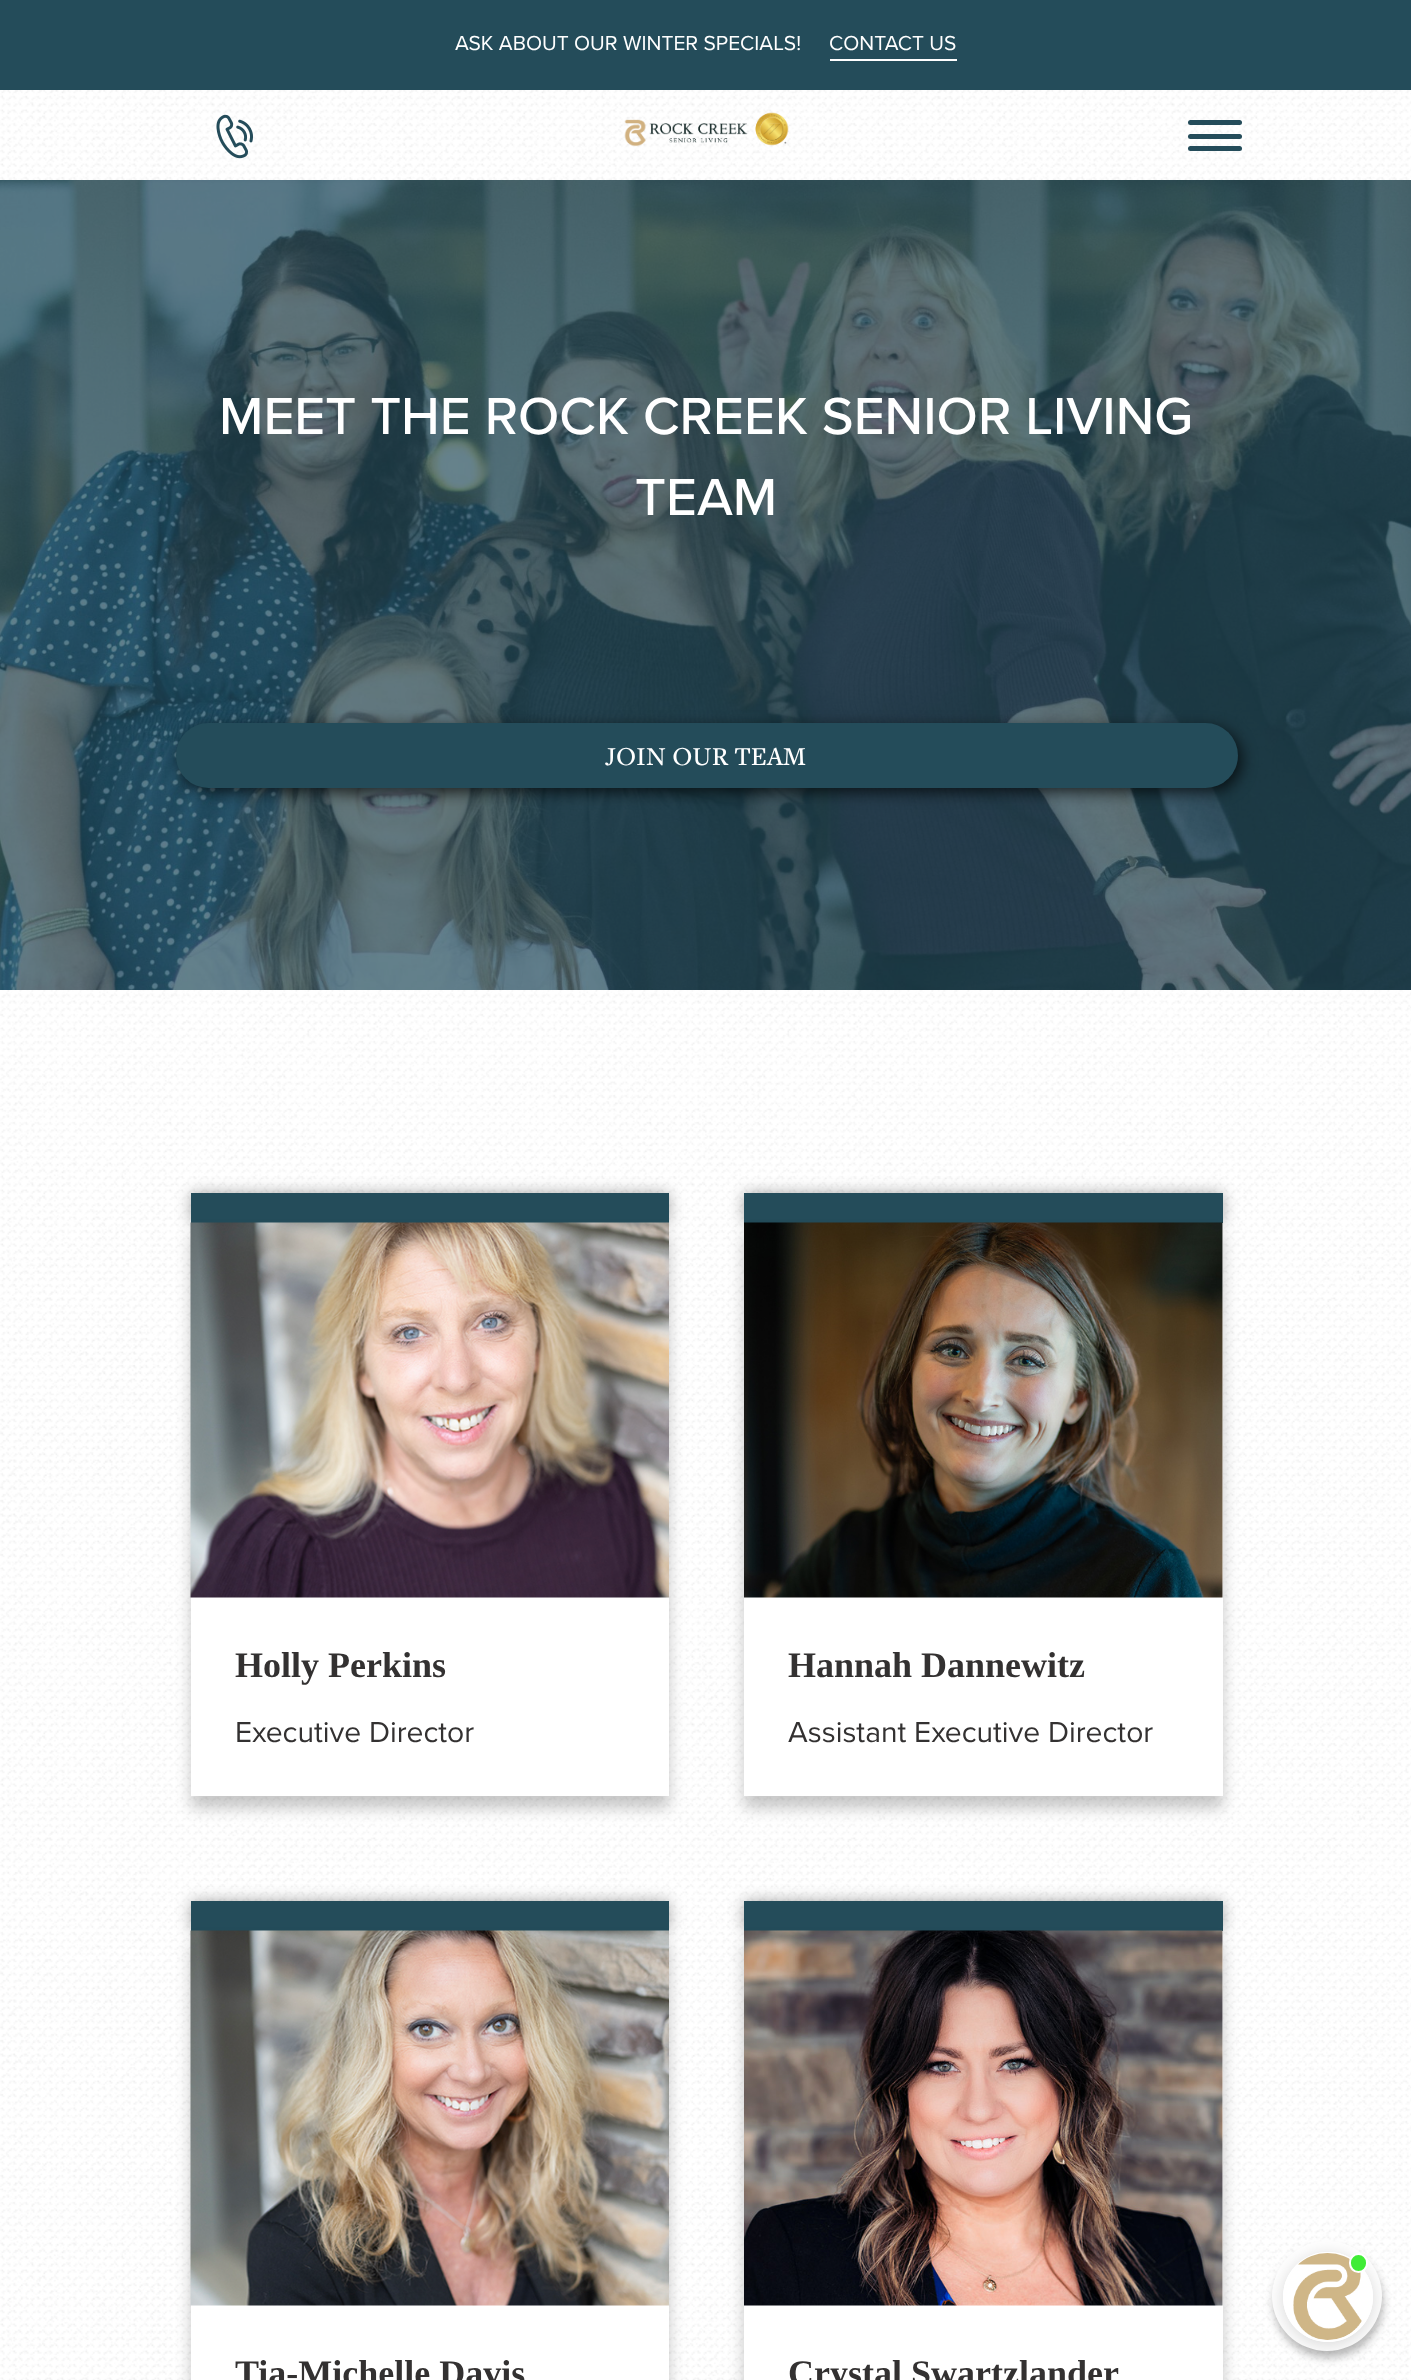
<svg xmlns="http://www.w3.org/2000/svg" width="1411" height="2380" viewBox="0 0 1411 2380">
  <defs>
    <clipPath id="clip1"><path d="M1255 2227H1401V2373H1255ZM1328 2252C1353 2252 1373 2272 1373 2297C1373 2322 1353 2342 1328 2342C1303 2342 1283 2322 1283 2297C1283 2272 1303 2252 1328 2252Z" clip-rule="evenodd"/></clipPath>
  </defs>
  <rect width="100%" height="100%" fill="rgb(255,255,255)"/>
  <image x="0" y="90" width="1411" height="2290" href="pic1.png"/>
  <rect x="0" y="0" width="1411" height="90" fill="rgb(36,76,90)"/>
  <g font-family="Proxima Nova" font-size="21" fill="rgb(255,255,255)">
    <text x="455" y="50">ASK ABOUT OUR WINTER SPECIALS!</text>
    <text x="829" y="50">CONTACT US</text>
  </g>
  <rect x="830" y="59" width="127" height="2" fill="rgb(255,255,255)"/>
  <image x="216" y="114" width="37" height="45" href="pic2.png"/>
  <image x="624" y="112" width="165" height="35" href="pic3.png"/>
  <rect x="1188" y="120" width="54" height="5" rx="2.5" fill="rgb(36,76,90)"/>
  <rect x="1188" y="134" width="54" height="5" rx="2.5" fill="rgb(36,76,90)"/>
  <rect x="1188" y="146" width="54" height="5" rx="2.5" fill="rgb(36,76,90)"/>
  <image x="0" y="180" width="1411" height="810" href="pic4.png"/>
  <g font-family="Proxima Nova" font-size="54" font-weight="500" fill="rgb(255,255,255)">
    <text x="219" y="434">MEET THE ROCK CREEK SENIOR LIVING</text>
    <text x="635" y="515">TEAM</text>
  </g>
  <rect x="180" y="728" width="1062" height="64" rx="32" fill="rgba(0,0,0,0.71)" filter="blur(7.5px)"/>
  <rect x="176" y="723" width="1062" height="65" rx="32.5" fill="rgb(36,76,90)"/>
  <text x="605" y="765" font-family="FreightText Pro" font-size="27" font-weight="500" fill="rgb(255,255,255)">JOIN OUR TEAM</text>
  <rect x="191" y="1193" width="478" height="30" fill="rgba(0,0,0,0.34)" filter="blur(7.5px)"/>
  <rect x="191" y="1193" width="478" height="30" fill="rgb(36,76,90)"/>
  <rect x="191" y="1235" width="478" height="573" fill="rgba(0,0,0,0.22)" filter="blur(7.5px)"/>
  <rect x="191" y="1597" width="478" height="199" fill="rgb(255,255,255)"/>
  <image x="190" y="1222" width="479" height="376" href="pic5.png"/>
  <text x="235" y="1677" font-family="Liberation Serif" font-size="36" font-weight="bold" fill="rgb(51,49,49)">Holly Perkins</text>
  <text x="235" y="1742" font-family="Proxima Nova" font-size="30" fill="rgb(51,49,49)">Executive Director</text>
  <rect x="744" y="1193" width="479" height="30" fill="rgba(0,0,0,0.34)" filter="blur(7.5px)"/>
  <rect x="744" y="1193" width="479" height="30" fill="rgb(36,76,90)"/>
  <rect x="744" y="1235" width="479" height="573" fill="rgba(0,0,0,0.22)" filter="blur(7.5px)"/>
  <rect x="744" y="1223" width="479" height="573" fill="rgb(255,255,255)"/>
  <image x="744" y="1222" width="479" height="376" href="pic6.png"/>
  <text x="788" y="1677" font-family="Liberation Serif" font-size="36" font-weight="bold" fill="rgb(51,49,49)">Hannah Dannewitz</text>
  <text x="788" y="1742" font-family="Proxima Nova" font-size="30" fill="rgb(51,49,49)">Assistant Executive Director</text>
  <rect x="191" y="1901" width="478" height="30" fill="rgba(0,0,0,0.34)" filter="blur(7.5px)"/>
  <rect x="191" y="1901" width="478" height="30" fill="rgb(36,76,90)"/>
  <rect x="191" y="1943" width="478" height="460" fill="rgba(0,0,0,0.22)" filter="blur(7.5px)"/>
  <rect x="191" y="2305" width="478" height="75" fill="rgb(255,255,255)"/>
  <image x="190" y="1930" width="479" height="376" href="pic7.png"/>
  <text x="235" y="2385" font-family="Liberation Serif" font-size="36" font-weight="bold" fill="rgb(51,49,49)">Tia-Michelle Davis</text>
  <rect x="744" y="1901" width="479" height="30" fill="rgba(0,0,0,0.34)" filter="blur(7.5px)"/>
  <rect x="744" y="1901" width="479" height="30" fill="rgb(36,76,90)"/>
  <rect x="744" y="1943" width="479" height="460" fill="rgba(0,0,0,0.22)" filter="blur(7.5px)"/>
  <rect x="744" y="1931" width="479" height="449" fill="rgb(255,255,255)"/>
  <image x="744" y="1930" width="479" height="376" href="pic8.png"/>
  <text x="788" y="2385" font-family="Liberation Serif" font-size="36" font-weight="bold" fill="rgb(51,49,49)">Crystal Swartzlander</text>
  <rect x="1274" y="2249" width="109" height="109" rx="54.5" fill="rgba(0,0,0,0.25)" filter="blur(4px)"/>
  <circle cx="1327" cy="2296" r="55" fill="rgb(255,255,255)"/>
  <g clip-path="url(#clip1)">
    <rect x="1283" y="2255" width="90" height="90" rx="45" fill="rgba(0,0,0,0.16)" filter="blur(9px)"/>
  </g>
  <circle cx="1328" cy="2297" r="44" fill="none" stroke="rgb(255,255,255)" stroke-width="2"/>
  <image x="1293" y="2253" width="69" height="87" href="pic9.png"/>
  <rect x="1350" y="2254" width="17" height="18" rx="8.5" fill="rgb(64,236,54)" stroke="rgb(255,255,255)" stroke-width="2"/>
</svg>
